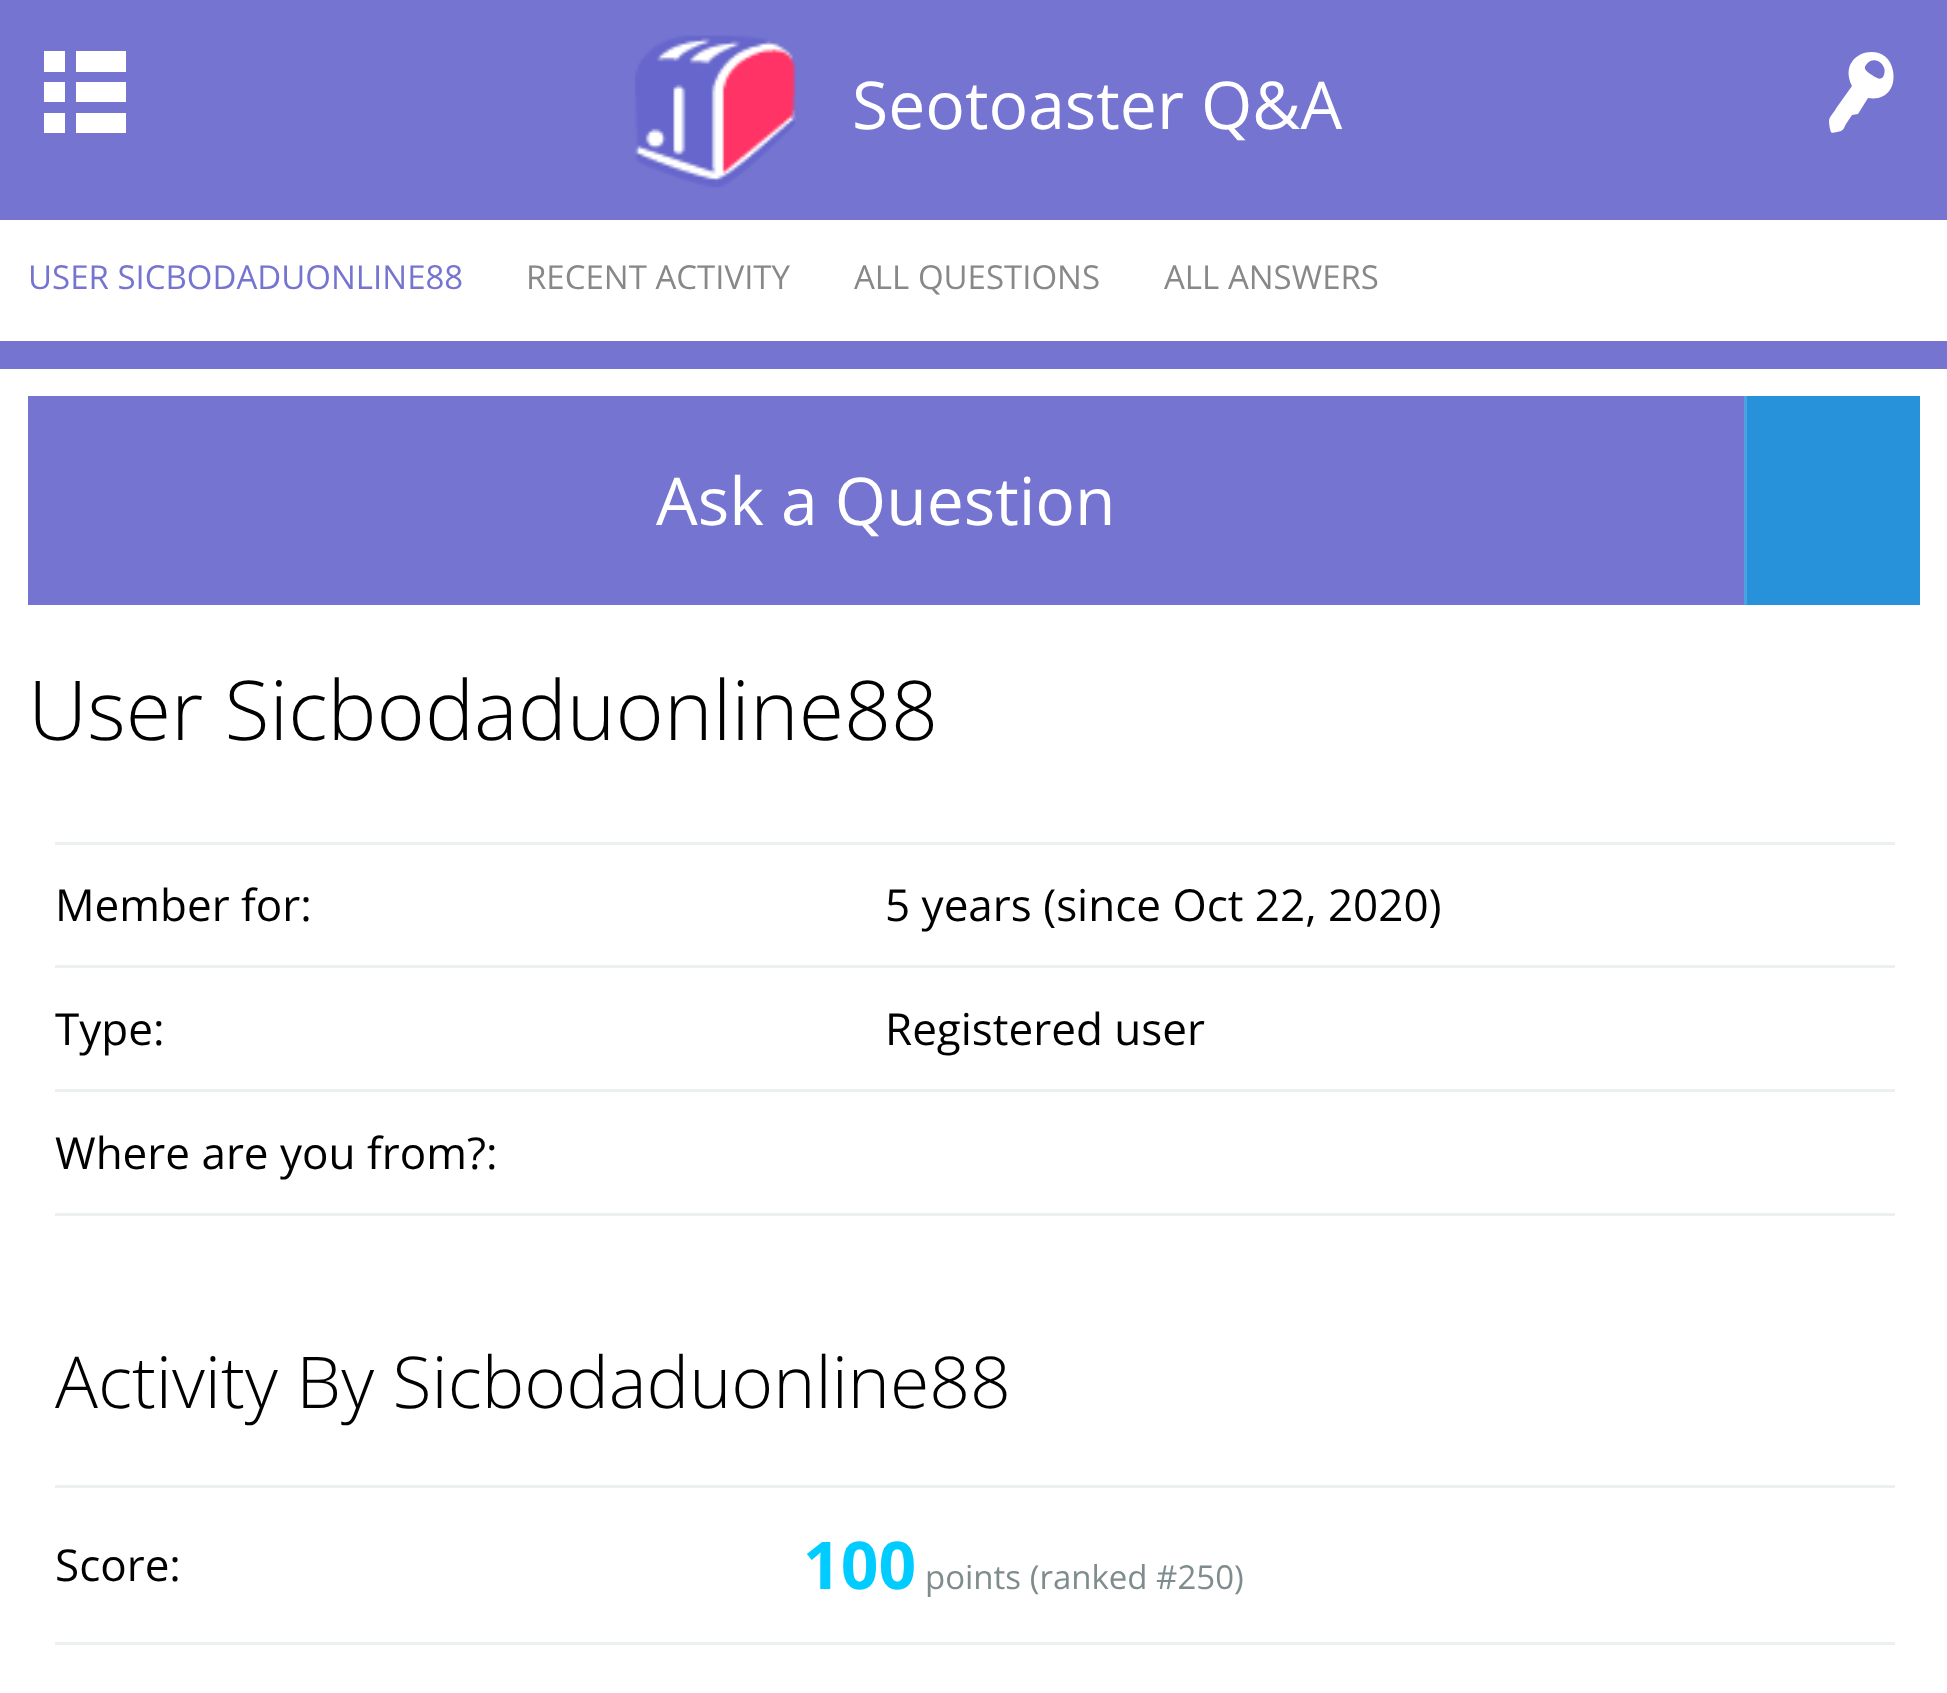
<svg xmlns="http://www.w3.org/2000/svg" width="1947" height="1693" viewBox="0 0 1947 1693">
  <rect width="100%" height="100%" fill="rgb(255,255,255)"/>
  <rect x="0" y="0" width="1947" height="220" fill="rgb(117,117,209)"/>
  <path d="M44 133V113H65V133ZM44 102V82H65V102ZM44 72V51H65V72ZM76 133V113H126V133ZM76 102V82H126V102ZM76 72V51H126V72Z" fill="rgb(255,255,255)"/>
  <image x="634" y="35" width="162" height="153" href="pic1.png"/>
  <text x="852" y="129" font-family="Open Sans" font-size="66" fill="rgb(255,255,255)">Seotoaster Q&amp;A</text>
  <path d="M1893 71C1896 88 1886 101 1868 98L1858 114L1852 115L1846 124C1843 130 1843 131 1837 132C1832 133 1831 134 1830 129C1828 116 1829 120 1837 107L1852 86C1835 51 1888 38 1893 71ZM1883 77C1890 66 1874 53 1866 65C1862 69 1869 73 1872 75C1875 77 1880 81 1883 77Z" fill="rgb(255,255,255)"/>
  <rect x="0" y="341" width="1947" height="28" fill="rgb(117,117,209)"/>
  <text x="28" y="289" font-family="Open Sans" font-size="33" fill="rgb(117,117,209)">USER SICBODADUONLINE88</text>
  <g font-family="Open Sans" font-size="33" fill="rgb(136,136,136)">
    <text x="526" y="289">RECENT ACTIVITY</text>
    <text x="854" y="289">ALL QUESTIONS</text>
    <text x="1164" y="289">ALL ANSWERS</text>
  </g>
  <rect x="28" y="396" width="1716" height="209" fill="rgb(117,117,209)"/>
  <text x="656" y="525" font-family="Open Sans" font-size="66" fill="rgb(255,255,255)">Ask a Question</text>
  <rect x="1747" y="396" width="173" height="209" fill="rgb(39,145,217)"/>
  <rect x="1744" y="396" width="3" height="209" fill="rgb(74,163,223)"/>
  <text x="28" y="740" font-family="Open Sans" font-size="82.5" font-weight="300" fill="rgb(0,0,0)">User Sicbodaduonline88</text>
  <text x="55" y="921" font-family="Open Sans" font-size="44" fill="rgb(0,0,0)">Member for:</text>
  <rect x="55" y="842" width="1840" height="3" fill="rgb(236,240,241)"/>
  <g font-family="Open Sans" font-size="44" fill="rgb(0,0,0)">
    <text x="885" y="921">5 years (since Oct 22, 2020)</text>
    <text x="55" y="1045">Type:</text>
  </g>
  <rect x="55" y="965" width="1840" height="3" fill="rgb(236,240,241)"/>
  <text x="885" y="1045" font-family="Open Sans" font-size="44" fill="rgb(0,0,0)">Registered user</text>
  <rect x="55" y="1089" width="1840" height="3" fill="rgb(236,240,241)"/>
  <rect x="55" y="1213" width="1840" height="3" fill="rgb(236,240,241)"/>
  <text x="55" y="1169" font-family="Open Sans" font-size="44" fill="rgb(0,0,0)">Where are you from?:</text>
  <text x="55" y="1408" font-family="Open Sans" font-size="71.5" font-weight="300" fill="rgb(0,0,0)">Activity By Sicbodaduonline88</text>
  <text x="55" y="1581" font-family="Open Sans" font-size="44" fill="rgb(0,0,0)">Score:</text>
  <rect x="55" y="1485" width="1840" height="3" fill="rgb(236,240,241)"/>
  <text x="803" y="1589" font-family="Open Sans" font-size="66" font-weight="bold" fill="rgb(0,204,255)">100</text>
  <text x="925" y="1589" font-family="Open Sans" font-size="33" fill="rgb(127,140,141)">points (ranked #250)</text>
  <rect x="55" y="1642" width="1840" height="3" fill="rgb(236,240,241)"/>
</svg>
